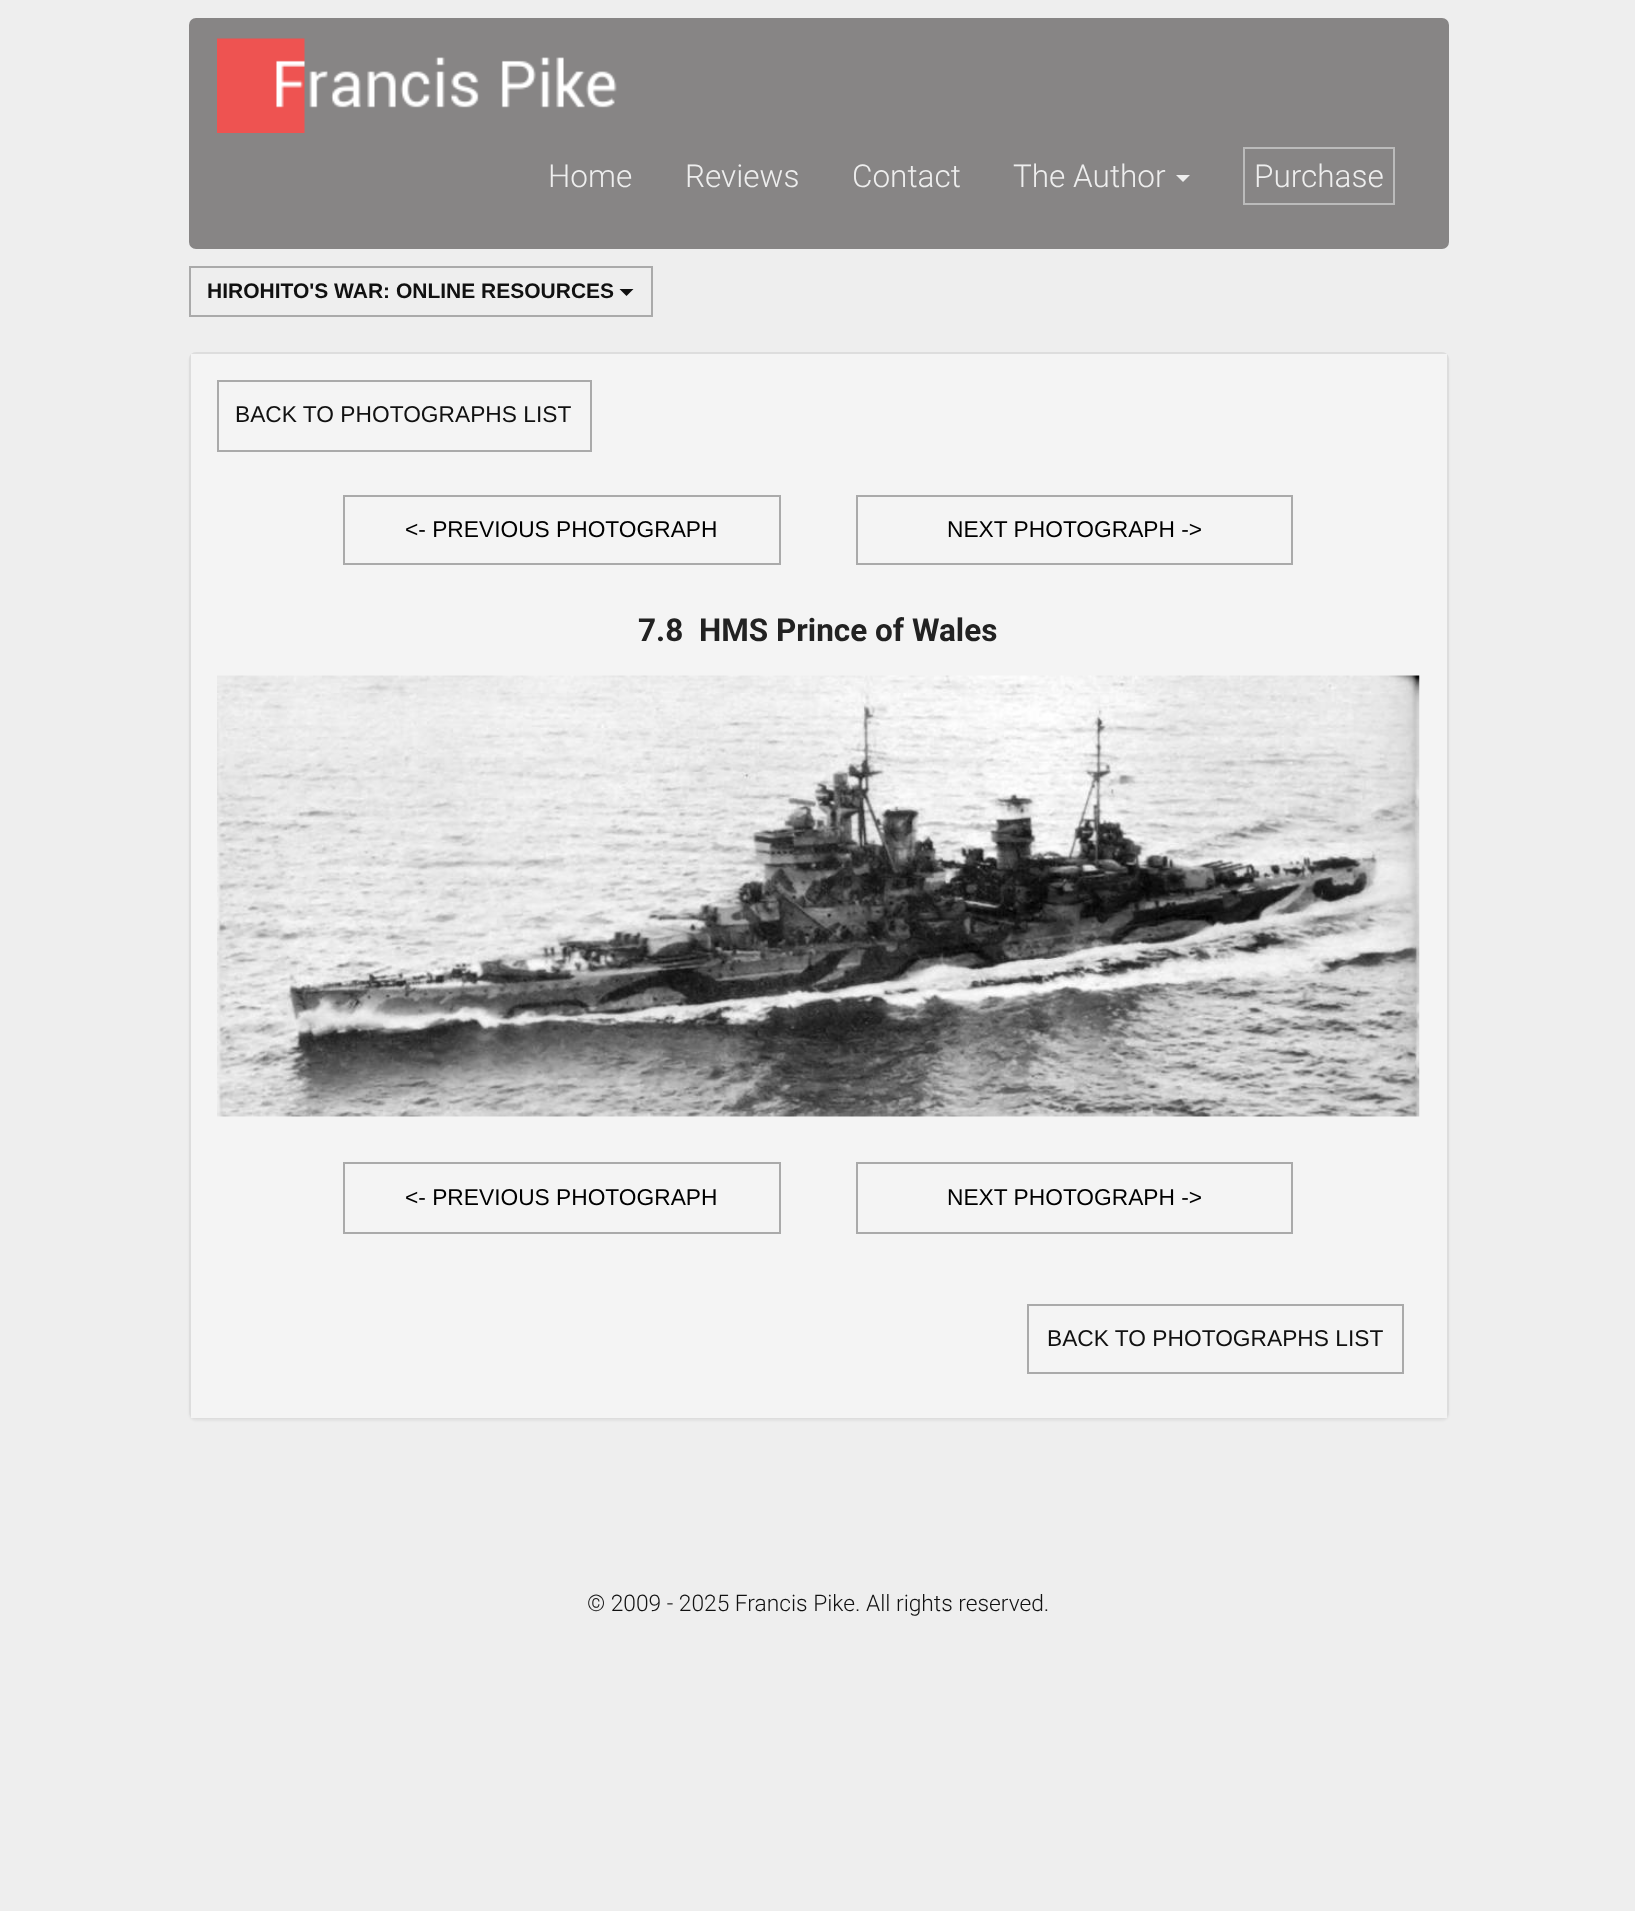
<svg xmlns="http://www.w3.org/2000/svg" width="1635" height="1911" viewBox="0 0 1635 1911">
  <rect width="100%" height="100%" fill="rgb(238,238,238)"/>
  <rect x="190" y="19" width="1258" height="229" rx="6" fill="rgb(135,133,133)" stroke="rgb(135,133,133)" stroke-width="2"/>
  <image x="217" y="38" width="400" height="95" href="pic1.png"/>
  <g font-family="Roboto" font-size="31.5" font-weight="300" fill="rgb(238,238,238)">
    <text x="548" y="187">Home</text>
    <text x="685" y="187">Reviews</text>
    <text x="852" y="187">Contact</text>
    <text x="1013" y="187">The Author</text>
  </g>
  <path d="M1176 175H1190L1183 182Z" fill="rgb(238,238,238)"/>
  <rect x="1244" y="148" width="150" height="56" fill="none" stroke="rgb(187,187,187)" stroke-width="2"/>
  <text x="1254" y="187" font-family="Roboto" font-size="31.5" font-weight="300" fill="rgb(238,238,238)">Purchase</text>
  <rect x="190" y="267" width="462" height="49" fill="none" stroke="rgb(170,170,170)" stroke-width="2"/>
  <text x="207" y="298" font-family="Liberation Sans" font-size="21" font-weight="bold" fill="rgb(17,17,17)">HIROHITO'S WAR: ONLINE RESOURCES</text>
  <path d="M619.5 289H633.5L626.5 296Z" fill="rgb(17,17,17)"/>
  <rect x="189" y="354" width="1260" height="1067" rx="7" fill="rgba(0,0,0,0.05)" filter="blur(1px)"/>
  <rect x="190" y="353" width="1258" height="1065" rx="6" fill="none" stroke="rgb(221,221,221)" stroke-width="2"/>
  <rect x="191" y="354" width="1256" height="1064" fill="rgb(244,244,244)"/>
  <rect x="218" y="381" width="373" height="70" fill="none" stroke="rgb(170,170,170)" stroke-width="2"/>
  <text x="235" y="422" font-family="Liberation Sans" font-size="22.75" fill="rgb(17,17,17)">BACK TO PHOTOGRAPHS LIST</text>
  <rect x="344" y="496" width="436" height="68" fill="none" stroke="rgb(170,170,170)" stroke-width="2"/>
  <text x="405" y="537" font-family="Liberation Sans" font-size="22.75" fill="rgb(0,0,0)">&lt;- PREVIOUS PHOTOGRAPH</text>
  <rect x="857" y="496" width="435" height="68" fill="none" stroke="rgb(170,170,170)" stroke-width="2"/>
  <text x="947" y="537" font-family="Liberation Sans" font-size="22.75" fill="rgb(0,0,0)">NEXT PHOTOGRAPH -&gt;</text>
  <text x="638" y="641" font-family="Roboto" font-size="31.5" font-weight="bold" fill="rgb(34,34,34)" xml:space="preserve">7.8  HMS Prince of Wales</text>
  <image x="217" y="675" width="1203" height="442" href="pic2.png"/>
  <rect x="344" y="1163" width="436" height="70" fill="none" stroke="rgb(170,170,170)" stroke-width="2"/>
  <text x="405" y="1205" font-family="Liberation Sans" font-size="22.75" fill="rgb(0,0,0)">&lt;- PREVIOUS PHOTOGRAPH</text>
  <rect x="857" y="1163" width="435" height="70" fill="none" stroke="rgb(170,170,170)" stroke-width="2"/>
  <text x="947" y="1205" font-family="Liberation Sans" font-size="22.75" fill="rgb(0,0,0)">NEXT PHOTOGRAPH -&gt;</text>
  <rect x="1028" y="1305" width="375" height="68" fill="none" stroke="rgb(170,170,170)" stroke-width="2"/>
  <text x="1047" y="1346" font-family="Liberation Sans" font-size="22.75" fill="rgb(17,17,17)">BACK TO PHOTOGRAPHS LIST</text>
  <text x="587" y="1611" font-family="Roboto" font-size="22.75" font-weight="300" fill="rgb(17,17,17)">© 2009 - 2025 Francis Pike. All rights reserved.</text>
</svg>
